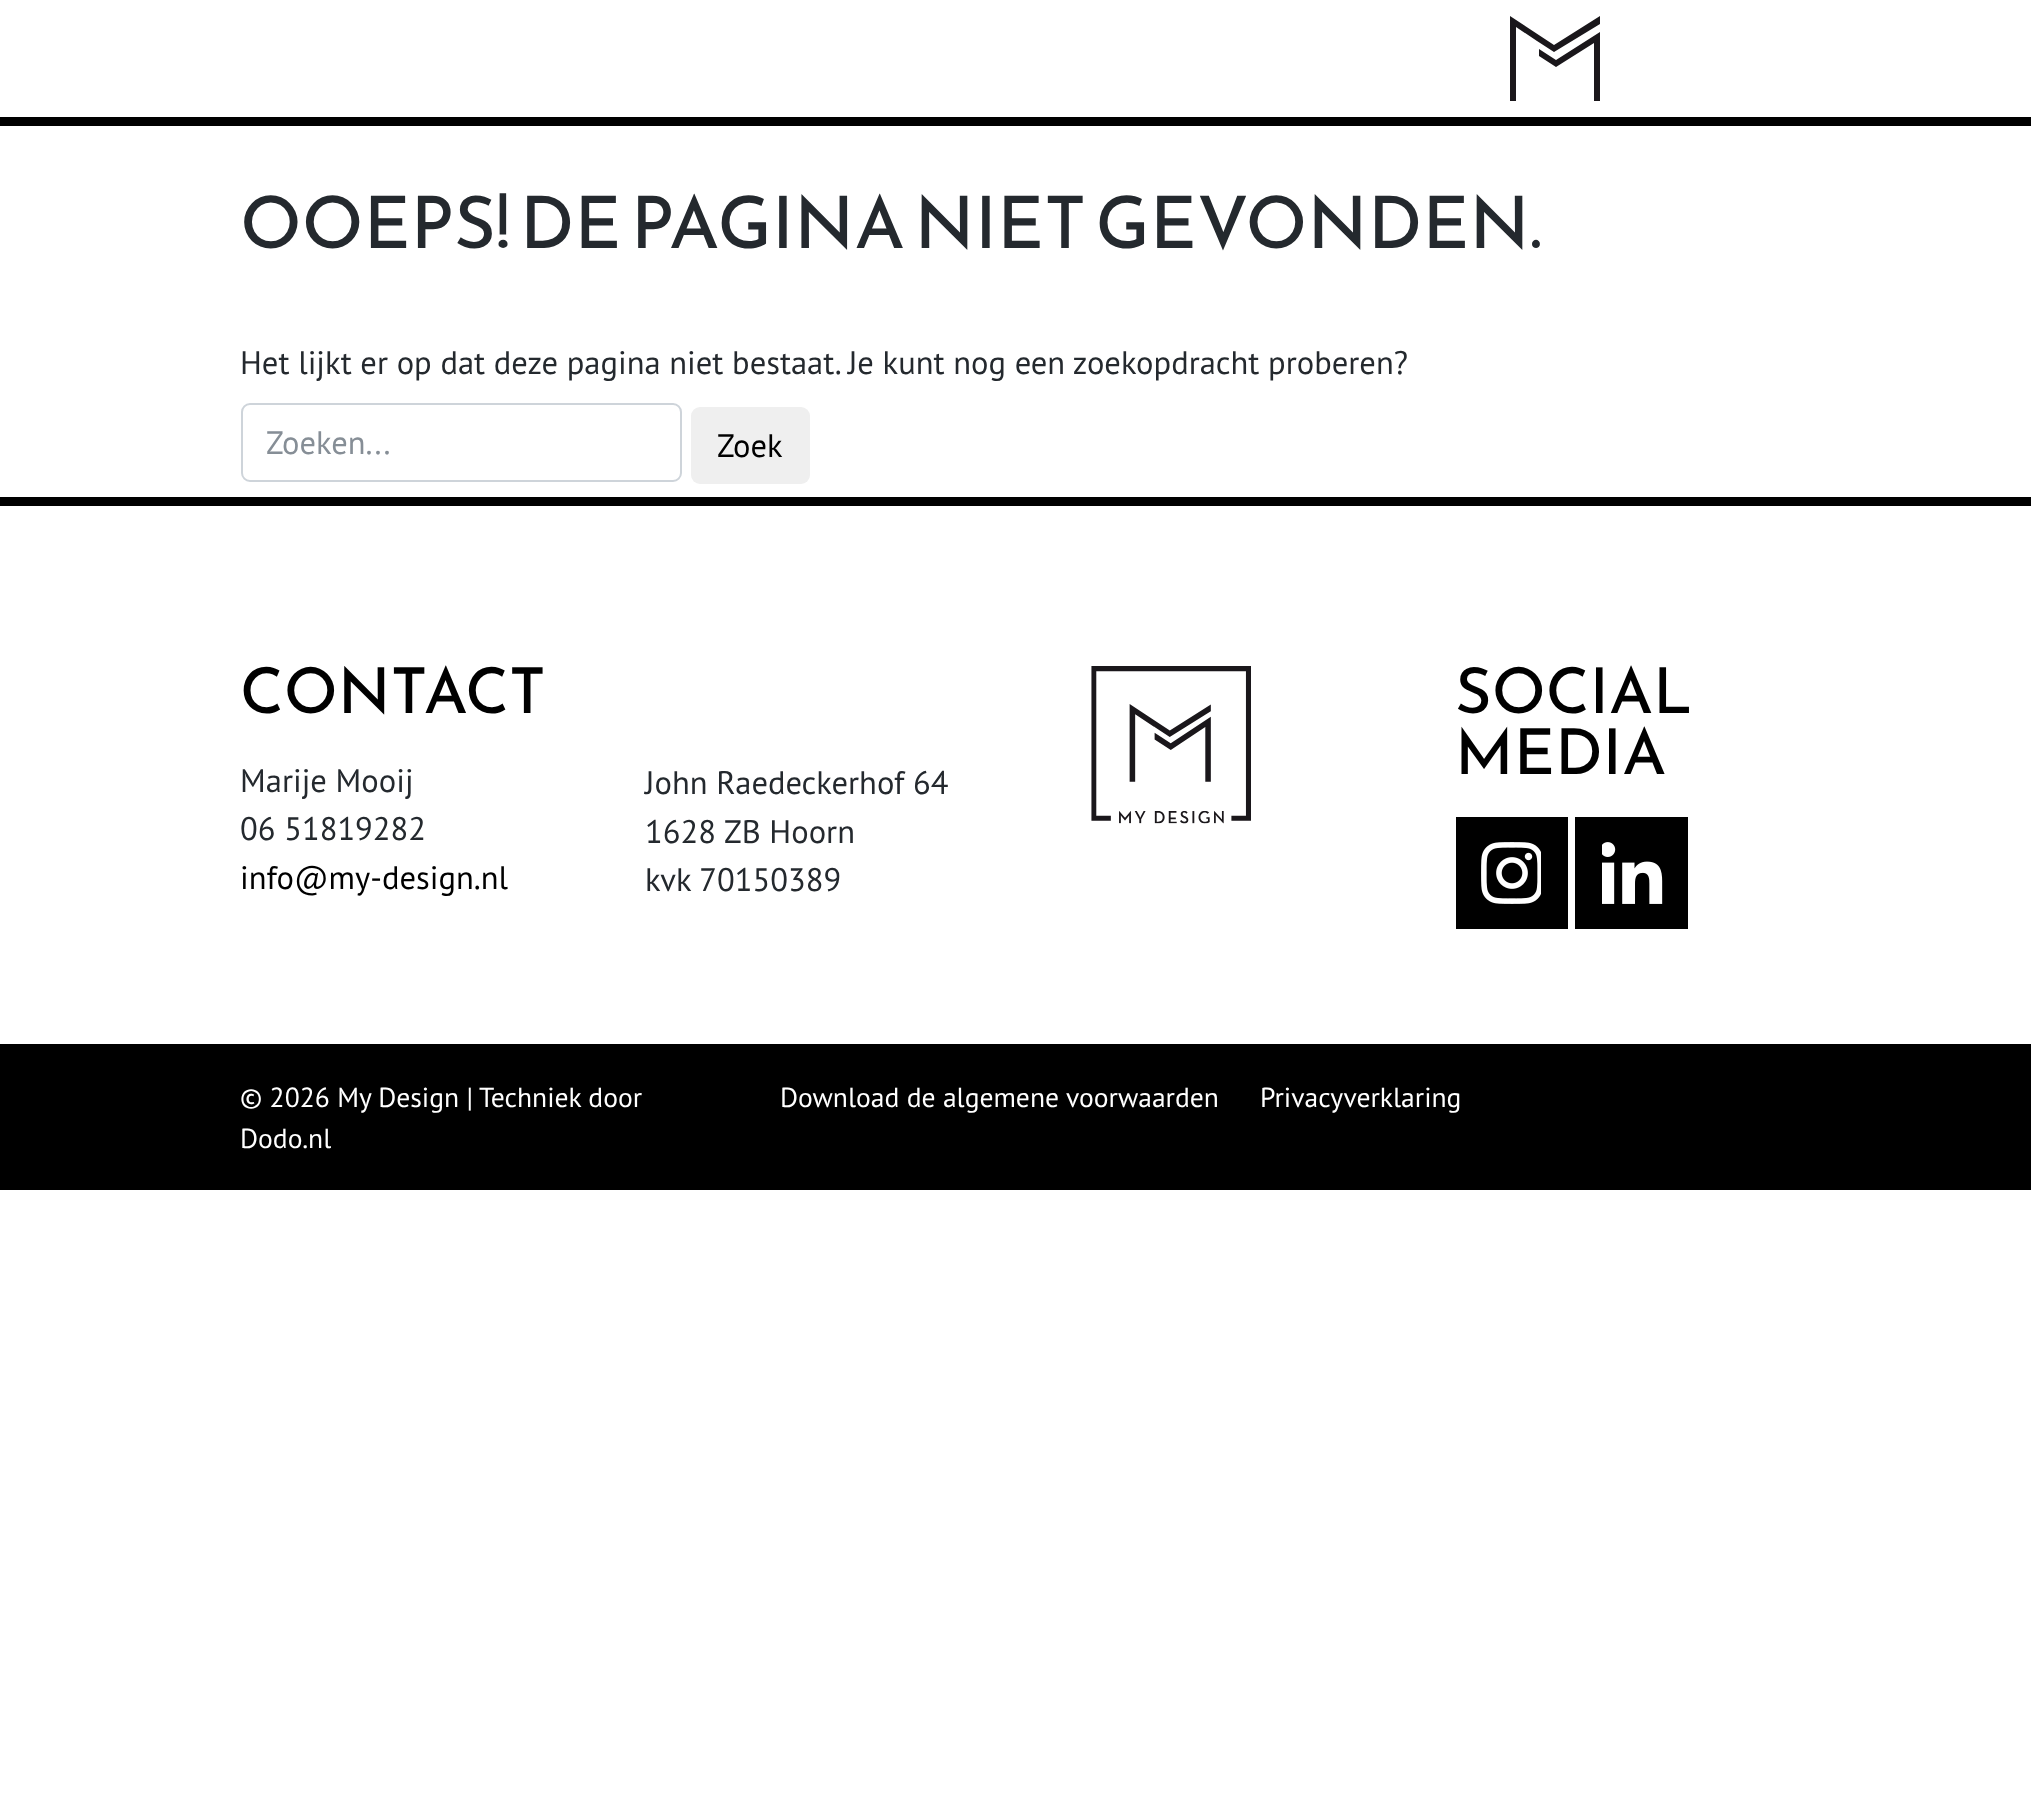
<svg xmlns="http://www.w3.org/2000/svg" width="2031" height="1799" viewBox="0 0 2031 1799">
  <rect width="100%" height="100%" fill="rgb(255,255,255)"/>
  <rect x="0" y="117" width="2031" height="9" fill="rgb(0,0,0)"/>
  <path d="M1556 67L1594 43V101H1600V32L1556 60L1539 49V56Z" fill="rgb(26,23,27)" fill-rule="evenodd"/>
  <path d="M1554 45L1510 16V101H1516V27L1537 41L1554 52L1600 24V16Z" fill="rgb(26,23,27)" fill-rule="evenodd"/>
  <text x="240" y="248" font-family="Reem Kufi" font-size="72" fill="rgb(36,41,46)">OOEPS! DE PAGINA NIET GEVONDEN.</text>
  <text x="240" y="374" font-family="PT Sans" font-size="32.55" fill="rgb(36,41,46)">Het lijkt er op dat deze pagina niet bestaat. Je kunt nog een zoekopdracht proberen?</text>
  <rect x="242" y="404" width="439" height="77" rx="8" fill="none" stroke="rgb(206,212,218)" stroke-width="2"/>
  <text x="266" y="454" font-family="PT Sans" font-size="32.5" fill="rgb(134,142,150)">Zoeken...</text>
  <rect x="691" y="407" width="119" height="77" rx="9" fill="rgb(239,239,239)"/>
  <text x="717" y="457" font-family="PT Sans" font-size="32.5" fill="rgb(0,0,0)">Zoek</text>
  <rect x="0" y="497" width="2031" height="9" fill="rgb(0,0,0)"/>
  <text x="240" y="713" font-family="Reem Kufi" font-size="63" fill="rgb(0,0,0)">CONTACT</text>
  <g font-family="PT Sans" font-size="32.55" fill="rgb(36,41,46)">
    <text>
      <tspan x="240" y="792">Marije Mooij</tspan>
      <tspan x="240" y="840">06 51819282</tspan>
    </text>
  </g>
  <text x="240" y="889" font-family="PT Sans" font-size="32.55" fill="rgb(0,0,0)">info@my-design.nl</text>
  <g font-family="PT Sans" font-size="32.55" fill="rgb(36,41,46)">
    <text>
      <tspan x="645" y="794">John Raedeckerhof 64</tspan>
      <tspan x="645" y="843">1628 ZB Hoorn</tspan>
      <tspan x="645" y="891">kvk 70150389</tspan>
    </text>
  </g>
  <image x="1091" y="666" width="160" height="158" href="pic1.png"/>
  <g font-family="Reem Kufi" font-size="63" fill="rgb(0,0,0)">
    <text>
      <tspan x="1455" y="713">SOCIAL</tspan>
      <tspan x="1455" y="774">MEDIA</tspan>
    </text>
  </g>
  <rect x="1456" y="817" width="112" height="112" fill="rgb(0,0,0)"/>
  <image x="1481" y="842" width="60" height="62" href="pic2.png"/>
  <rect x="1575" y="817" width="113" height="112" fill="rgb(0,0,0)"/>
  <image x="1602" y="842" width="61" height="62" href="pic3.png"/>
  <rect x="0" y="1044" width="2031" height="146" fill="rgb(0,0,0)"/>
  <g font-family="PT Sans" font-size="27.6" fill="rgb(255,255,255)">
    <text x="240" y="1107">© 2026 My Design |</text>
    <text x="479" y="1107">Techniek door</text>
    <text x="240" y="1148">Dodo.nl</text>
    <text x="780" y="1107">Download de algemene voorwaarden</text>
    <text x="1260" y="1107">Privacyverklaring</text>
  </g>
</svg>
